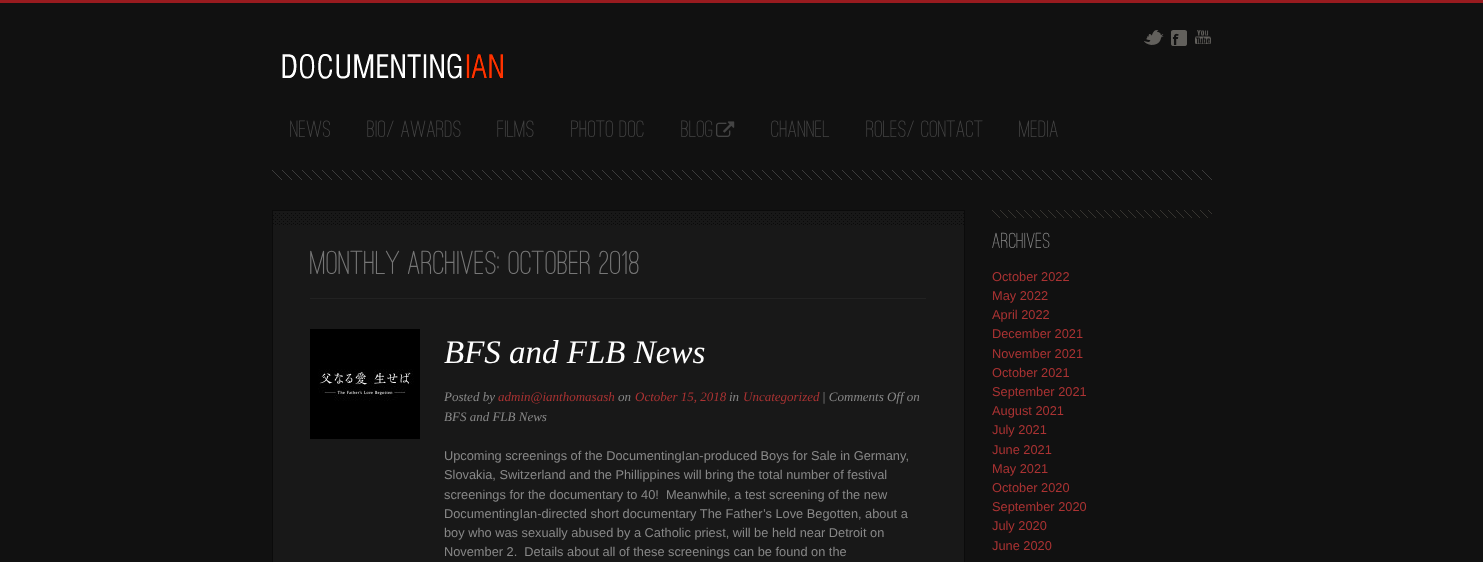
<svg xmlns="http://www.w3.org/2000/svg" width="1483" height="562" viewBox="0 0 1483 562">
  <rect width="100%" height="100%" fill="rgb(17,17,17)"/>
  <rect x="0" y="0" width="1483" height="3" fill="rgb(152,27,31)"/>
  <image x="1144" y="30" width="20" height="15" href="pic1.png"/>
  <image x="1171" y="30" width="16" height="16" href="pic2.png"/>
  <image x="1195" y="30" width="16" height="14" href="pic3.png"/>
  <image x="272" y="170" width="940" height="10" href="pic4.png"/>
  <image x="282" y="53" width="221" height="26" href="pic5.png"/>
  <g font-family="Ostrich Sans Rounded" font-size="24.5" font-weight="500" fill="rgb(68,68,68)">
    <text x="290" y="137">News</text>
    <text x="367" y="137">Bio/ Awards</text>
    <text x="497" y="137">Films</text>
    <text x="571" y="137">Photo Doc</text>
    <text x="681" y="137">Blog</text>
  </g>
  <image x="716" y="121" width="19" height="16" href="pic6.png"/>
  <g font-family="Ostrich Sans Rounded" font-size="24.5" font-weight="500" fill="rgb(68,68,68)">
    <text x="771" y="137">Channel</text>
    <text x="866" y="137">Roles/ Contact</text>
    <text x="1019" y="137">Media</text>
  </g>
  <rect x="273" y="211" width="691" height="351" fill="rgb(24,24,24)"/>
  <image x="273" y="213" width="691" height="12" href="pic7.png"/>
  <rect x="272.5" y="210.5" width="692" height="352" fill="none" stroke="rgb(11,11,11)"/>
  <rect x="310" y="298" width="616" height="1" fill="rgb(34,34,34)"/>
  <text x="310" y="274" font-family="Ostrich Sans Rounded" font-size="34.5" font-weight="500" fill="rgb(119,119,119)">Monthly Archives: October 2018</text>
  <image x="310" y="329" width="110" height="110" href="pic8.png"/>
  <text x="444" y="363" font-family="Liberation Serif" font-size="33" font-style="italic" fill="rgb(254,254,254)">BFS and FLB News</text>
  <text x="444" y="401" font-family="Liberation Serif" font-size="13" font-style="italic" fill="rgb(136,136,136)">Posted by</text>
  <text x="498" y="401" font-family="Liberation Serif" font-size="13" font-style="italic" fill="rgb(171,51,51)">admin@ianthomasash</text>
  <text x="618" y="401" font-family="Liberation Serif" font-size="13" font-style="italic" fill="rgb(136,136,136)">on</text>
  <text x="635" y="401" font-family="Liberation Serif" font-size="13" font-style="italic" fill="rgb(171,51,51)">October 15, 2018</text>
  <text x="729" y="401" font-family="Liberation Serif" font-size="13" font-style="italic" fill="rgb(136,136,136)">in</text>
  <text x="743" y="401" font-family="Liberation Serif" font-size="13" font-style="italic" fill="rgb(171,51,51)">Uncategorized</text>
  <g font-family="Liberation Serif" font-size="13" font-style="italic" fill="rgb(136,136,136)">
    <text x="822" y="401">| Comments Off on</text>
    <text x="444" y="421">BFS and FLB News</text>
  </g>
  <g font-family="Liberation Sans" font-size="12.8" fill="rgb(136,136,136)">
    <text xml:space="preserve"><tspan x="444" y="460">Upcoming screenings of the DocumentingIan-produced Boys for Sale in Germany,</tspan><tspan x="444" y="479">Slovakia, Switzerland and the Phillippines will bring the total number of festival</tspan><tspan x="444" y="499">screenings for the documentary to 40!  Meanwhile, a test screening of the new</tspan><tspan x="444" y="518">DocumentingIan-directed short documentary The Father’s Love Begotten, about a</tspan><tspan x="444" y="537">boy who was sexually abused by a Catholic priest, will be held near Detroit on</tspan><tspan x="444" y="556">November 2.  Details about all of these screenings can be found on the</tspan></text>
  </g>
  <image x="992" y="210" width="220" height="8" href="pic9.png"/>
  <text x="992" y="248" font-family="Ostrich Sans Rounded" font-size="22.5" font-weight="500" fill="rgb(136,136,136)">Archives</text>
  <g font-family="Liberation Sans" font-size="12.8" fill="rgb(171,51,51)">
    <text>
      <tspan x="992" y="281">October 2022</tspan>
      <tspan x="992" y="300">May 2022</tspan>
      <tspan x="992" y="319">April 2022</tspan>
      <tspan x="992" y="338">December 2021</tspan>
      <tspan x="992" y="358">November 2021</tspan>
      <tspan x="992" y="377">October 2021</tspan>
      <tspan x="992" y="396">September 2021</tspan>
      <tspan x="992" y="415">August 2021</tspan>
      <tspan x="992" y="434">July 2021</tspan>
      <tspan x="992" y="454">June 2021</tspan>
      <tspan x="992" y="473">May 2021</tspan>
      <tspan x="992" y="492">October 2020</tspan>
      <tspan x="992" y="511">September 2020</tspan>
      <tspan x="992" y="530">July 2020</tspan>
      <tspan x="992" y="550">June 2020</tspan>
    </text>
  </g>
</svg>
